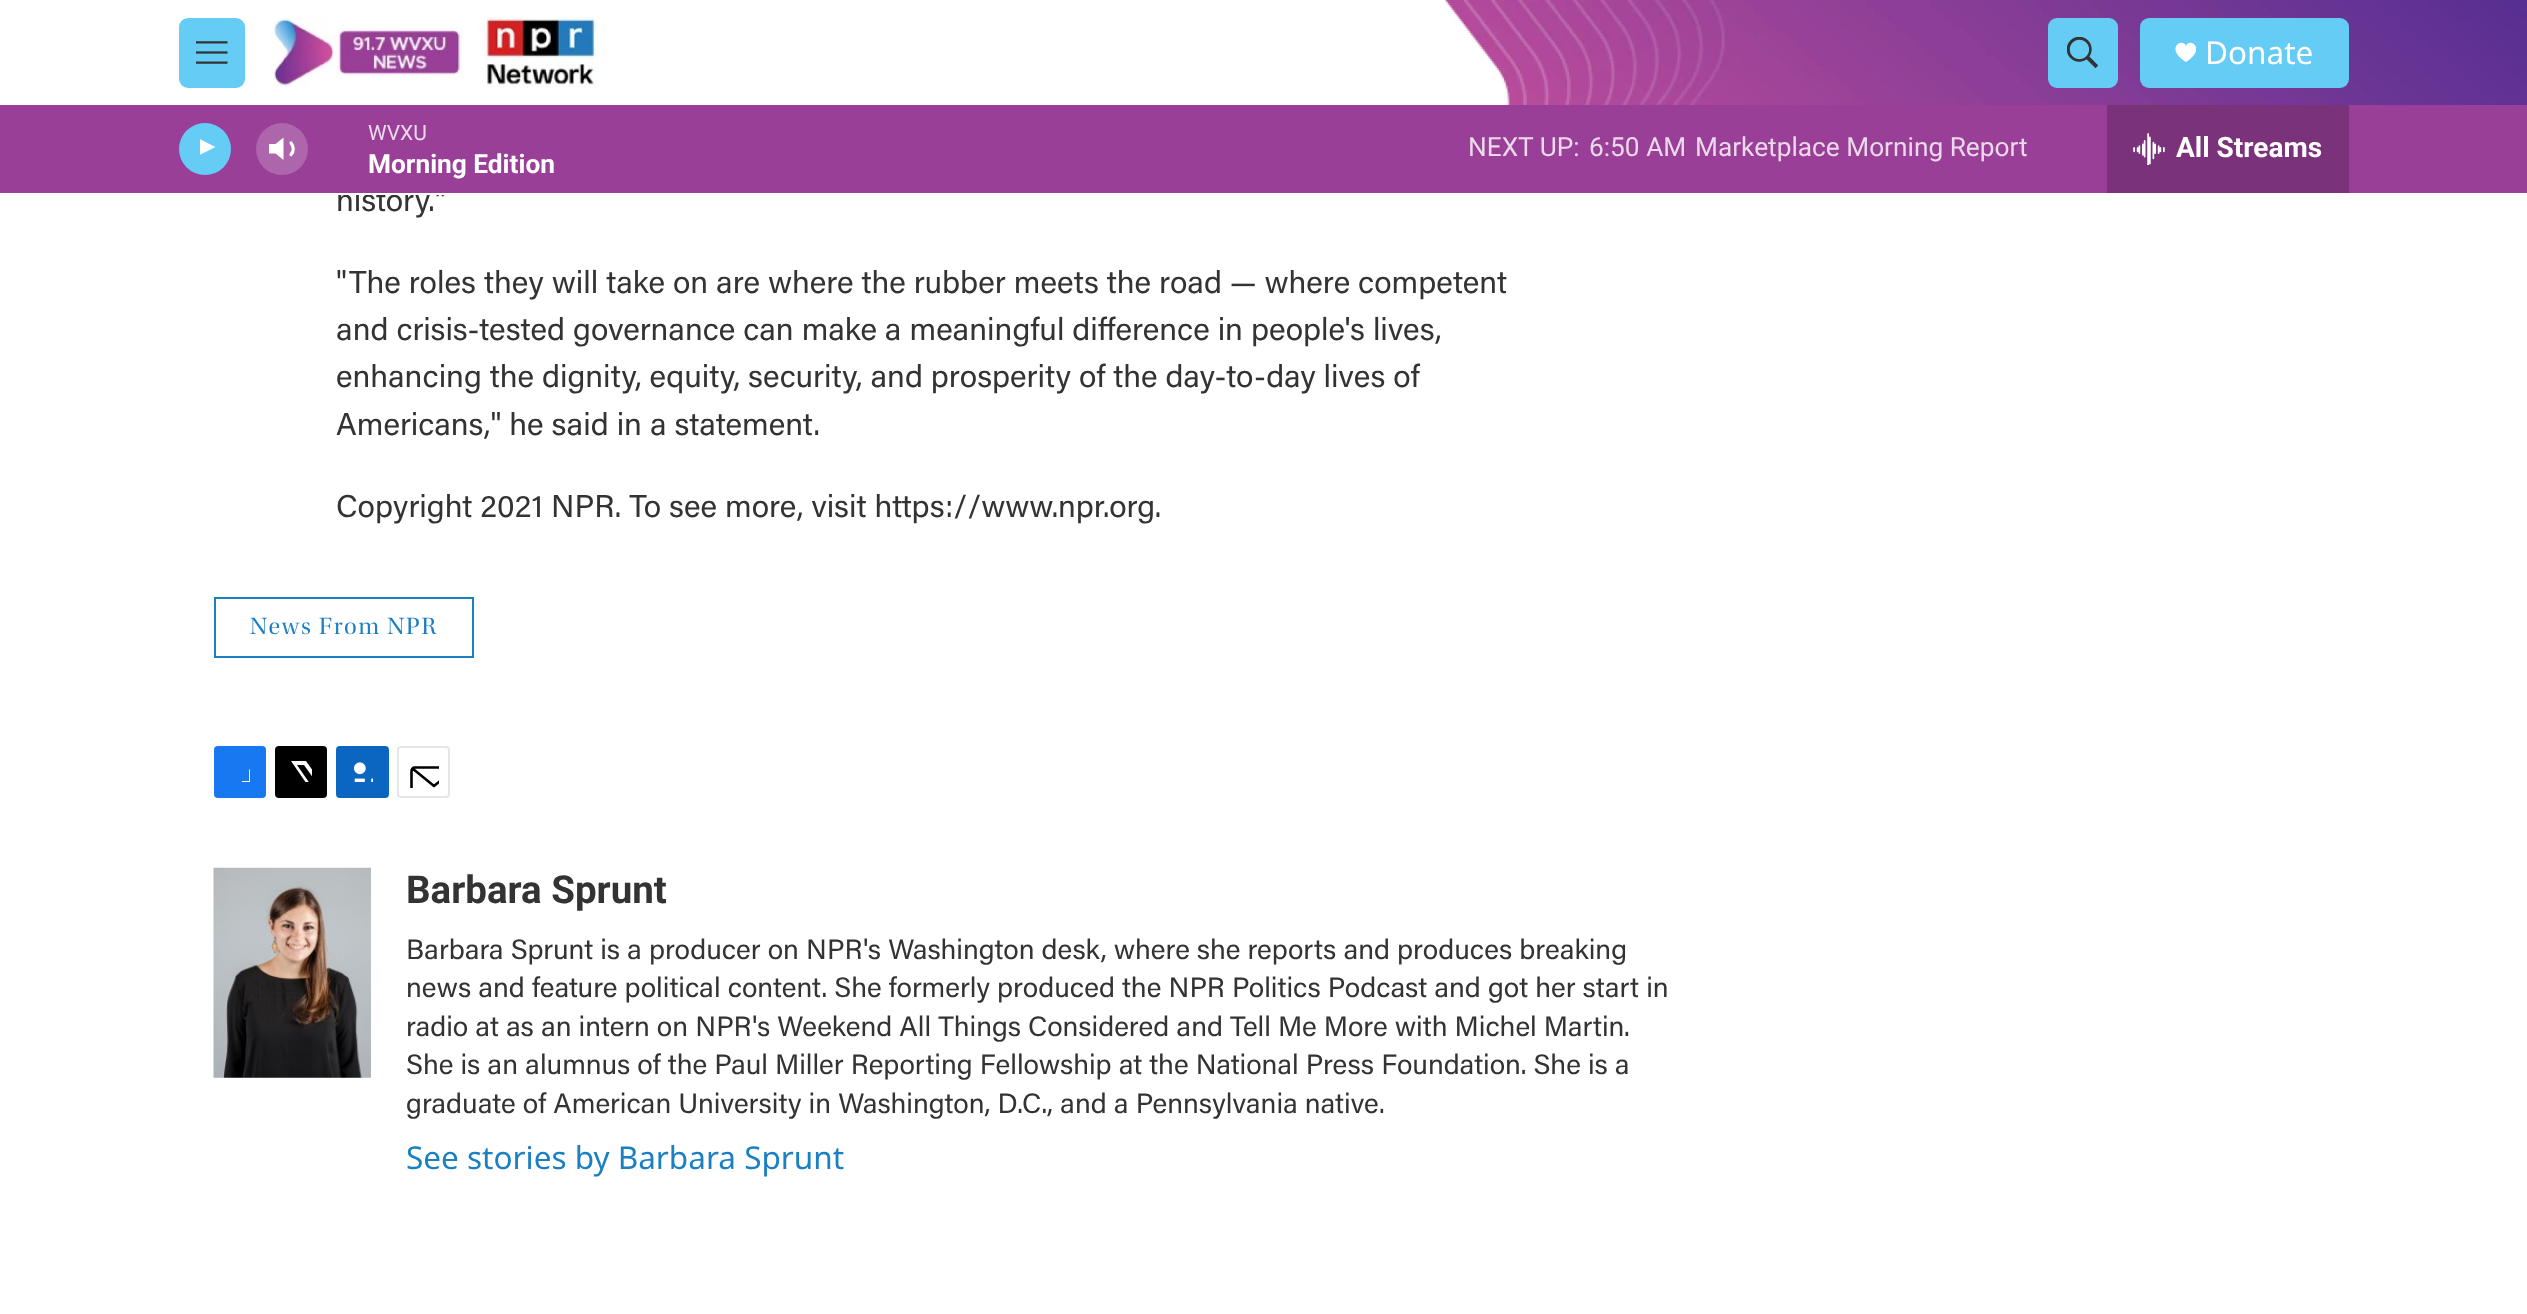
<svg xmlns="http://www.w3.org/2000/svg" width="2527" height="1314" viewBox="0 0 2527 1314">
  <defs>
    <clipPath id="clip1"><rect x="2175" y="42" width="21" height="21"/></clipPath>
    <clipPath id="clip2"><rect x="200" y="137" width="20" height="26"/></clipPath>
    <clipPath id="clip3"><rect x="229" y="761" width="21" height="21"/></clipPath>
    <clipPath id="clip4"><rect x="291" y="761" width="21" height="21"/></clipPath>
    <clipPath id="clip5"><rect x="408" y="756" width="31" height="32"/></clipPath>
  </defs>
  <rect width="100%" height="100%" fill="rgb(255,255,255)"/>
  <text x="336" y="211" font-family="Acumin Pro" font-size="31.5" fill="rgb(51,51,51)">history."</text>
  <rect x="338" y="193" width="106" height="2" fill="rgb(255,255,255)"/>
  <image x="1444" y="0" width="1083" height="105" href="pic1.png"/>
  <rect x="179" y="18" width="66" height="70" rx="9" fill="rgb(101,205,245)"/>
  <image x="196" y="41" width="32" height="23" href="pic2.png"/>
  <image x="271" y="17" width="328" height="70" href="pic3.png"/>
  <rect x="2048" y="18" width="70" height="70" rx="9" fill="rgb(101,205,245)"/>
  <image x="2067" y="37" width="31" height="31" href="pic4.png"/>
  <rect x="2140" y="18" width="209" height="70" rx="9" fill="rgb(101,205,245)"/>
  <g clip-path="url(#clip1)">
    <path d="M2186 46C2182.5 37 2164 48.5 2186 62C2207.5 48.5 2189 37 2186 46Z" fill="rgb(255,255,255)"/>
  </g>
  <text x="2205" y="64" font-family="Noto Sans" font-size="31.5" fill="rgb(255,255,255)">Donate</text>
  <rect x="0" y="105" width="2527" height="88" fill="rgb(153,63,152)"/>
  <circle cx="205" cy="149" r="26" fill="rgb(101,205,245)"/>
  <g clip-path="url(#clip2)">
    <path d="M198.5 138.5L215.5 147L198.5 155.5Z" fill="rgb(255,255,255)"/>
  </g>
  <path d="M283.5 137.5L275.5 144H269V153.5H275.5L283.5 160Z" fill="rgb(255,255,255)"/>
  <path d="M291 143C294 146.5 294 151.5 291 154.5" fill="none" stroke="rgb(255,255,255)" stroke-width="3.2" stroke-linecap="round" stroke-linejoin="round"/>
  <circle cx="282" cy="149" r="26" fill="rgba(255,255,255,0.2)"/>
  <text x="368" y="140" font-family="Roboto" font-size="21" fill="rgb(235,217,234)">WVXU</text>
  <text x="368" y="173" font-family="'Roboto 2'" font-size="26.25" font-weight="bold" fill="rgb(255,255,255)">Morning Edition</text>
  <g font-family="Roboto" font-size="26.25" fill="rgb(235,217,234)">
    <text x="1468" y="156">NEXT UP:</text>
    <text x="1589" y="156">6:50 AM</text>
    <text x="1695" y="156">Marketplace Morning Report</text>
  </g>
  <rect x="2107" y="105" width="242" height="88" fill="rgb(122,50,122)"/>
  <image x="2133" y="133" width="32" height="32" href="pic5.png"/>
  <text x="2176" y="157" font-family="'Roboto 2'" font-size="28" font-weight="bold" fill="rgb(255,255,255)">All Streams</text>
  <g font-family="Acumin Pro" font-size="31.5" fill="rgb(51,51,51)">
    <text>
      <tspan x="336" y="293">"The roles they will take on are where the rubber meets the road — where competent</tspan>
      <tspan x="336" y="340">and crisis-tested governance can make a meaningful difference in people's lives,</tspan>
      <tspan x="336" y="387">enhancing the dignity, equity, security, and prosperity of the day-to-day lives of</tspan>
      <tspan x="336" y="435">Americans," he said in a statement.</tspan>
    </text>
    <text x="336" y="517">Copyright 2021 NPR. To see more, visit https://www.npr.org.</text>
  </g>
  <rect x="215" y="598" width="258" height="59" fill="none" stroke="rgb(26,127,195)" stroke-width="2"/>
  <text x="250" y="634" font-family="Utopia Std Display" font-size="24.5" letter-spacing="1.75" fill="rgb(26,127,195)">News From NPR</text>
  <rect x="214" y="746" width="52" height="52" rx="4" fill="rgb(23,120,242)"/>
  <g clip-path="url(#clip3)">
    <path d="M258 798H249V789H242V781H249V771C251 762.5 259 761 266 762V770C256 770 258 773 258 781H266V785L265 789H258Z" fill="rgb(255,255,255)"/>
  </g>
  <rect x="275" y="746" width="52" height="52" rx="4" fill="rgb(0,0,0)"/>
  <g clip-path="url(#clip4)">
    <path d="M322 783L327 791C327 792.5 327.5 794.5 326.5 796.5L304 765H297L315 791L320 798H316.5L313 793L309 798H304.5L311 790L291 761H306L320 781L327 772V777Z" fill="rgb(255,255,255)"/>
  </g>
  <rect x="336" y="746" width="53" height="52" rx="4" fill="rgb(10,102,193)"/>
  <image x="354" y="762" width="19" height="20" href="pic6.png"/>
  <rect x="398" y="747" width="51" height="50" rx="3" fill="none" stroke="rgb(230,230,230)" stroke-width="2"/>
  <g clip-path="url(#clip5)">
    <path d="M456.5 794.5C456.5 796 455 797.5 453.5 797.5H414.5C413 797.5 411.5 796 411.5 794.5V771C411.5 769 413 767.5 414.5 767.5H453.5C455 767.5 456.5 769 456.5 771ZM455.5 768.5L434 786L412.5 768.5" fill="none" stroke="rgb(0,0,0)" stroke-width="2.6" stroke-linecap="round" stroke-linejoin="round"/>
  </g>
  <image x="213" y="867" width="158" height="211" href="pic7.png"/>
  <text x="406" y="903" font-family="Roboto" font-size="38.5" font-weight="bold" fill="rgb(51,51,51)">Barbara Sprunt</text>
  <g font-family="Acumin Pro" font-size="28" fill="rgb(51,51,51)">
    <text>
      <tspan x="406" y="959">Barbara Sprunt is a producer on NPR's Washington desk, where she reports and produces breaking</tspan>
      <tspan x="406" y="997">news and feature political content. She formerly produced the NPR Politics Podcast and got her start in</tspan>
      <tspan x="406" y="1036">radio at as an intern on NPR's Weekend All Things Considered and Tell Me More with Michel Martin.</tspan>
      <tspan x="406" y="1074">She is an alumnus of the Paul Miller Reporting Fellowship at the National Press Foundation. She is a</tspan>
      <tspan x="406" y="1113">graduate of American University in Washington, D.C., and a Pennsylvania native.</tspan>
    </text>
  </g>
  <text x="406" y="1169" font-family="Noto Sans" font-size="31.5" fill="rgb(26,127,195)">See stories by Barbara Sprunt</text>
</svg>
